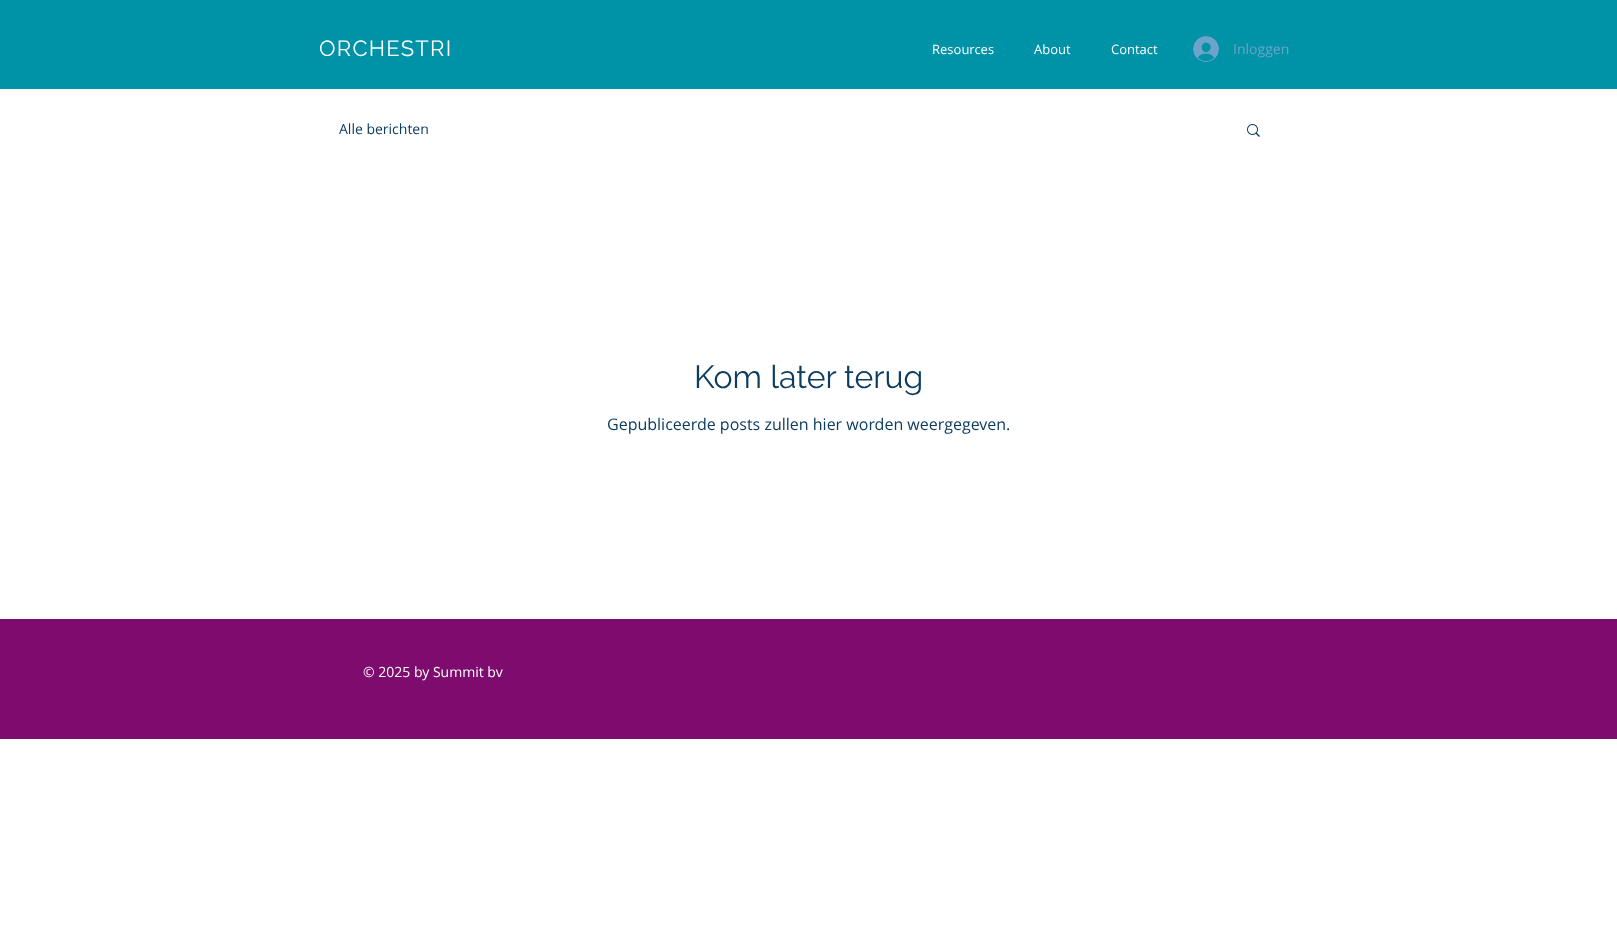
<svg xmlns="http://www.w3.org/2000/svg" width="1617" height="933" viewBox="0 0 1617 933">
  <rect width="100%" height="100%" fill="rgb(255,255,255)"/>
  <rect x="0" y="0" width="1617" height="89" fill="rgb(0,146,167)"/>
  <text x="319" y="56" font-family="Raleway" font-size="22" letter-spacing="1.25" fill="rgb(255,255,255)">ORCHESTRI</text>
  <g font-family="Open Sans" font-size="13" fill="rgb(255,255,255)">
    <text x="932" y="54">Resources</text>
    <text x="1034" y="54">About</text>
    <text x="1111" y="54">Contact</text>
  </g>
  <image x="1193" y="36" width="26" height="26" href="pic1.png"/>
  <text x="1233" y="54" font-family="Open Sans" font-size="14" fill="rgb(110,164,202)">Inloggen</text>
  <text x="339" y="134" font-family="Open Sans" font-size="14" fill="rgb(12,60,96)">Alle berichten</text>
  <image x="1247" y="124" width="13" height="13" href="pic2.png"/>
  <text x="694" y="388" font-family="Raleway" font-size="32" fill="rgb(12,60,96)">Kom later terug</text>
  <text x="607" y="430" font-family="Open Sans" font-size="16" fill="rgb(12,60,96)">Gepubliceerde posts zullen hier worden weergegeven.</text>
  <rect x="0" y="619" width="1617" height="120" fill="rgb(126,12,110)"/>
  <text x="363" y="677" font-family="Open Sans" font-size="14" fill="rgb(255,255,255)">© 2025 by Summit bv</text>
</svg>
